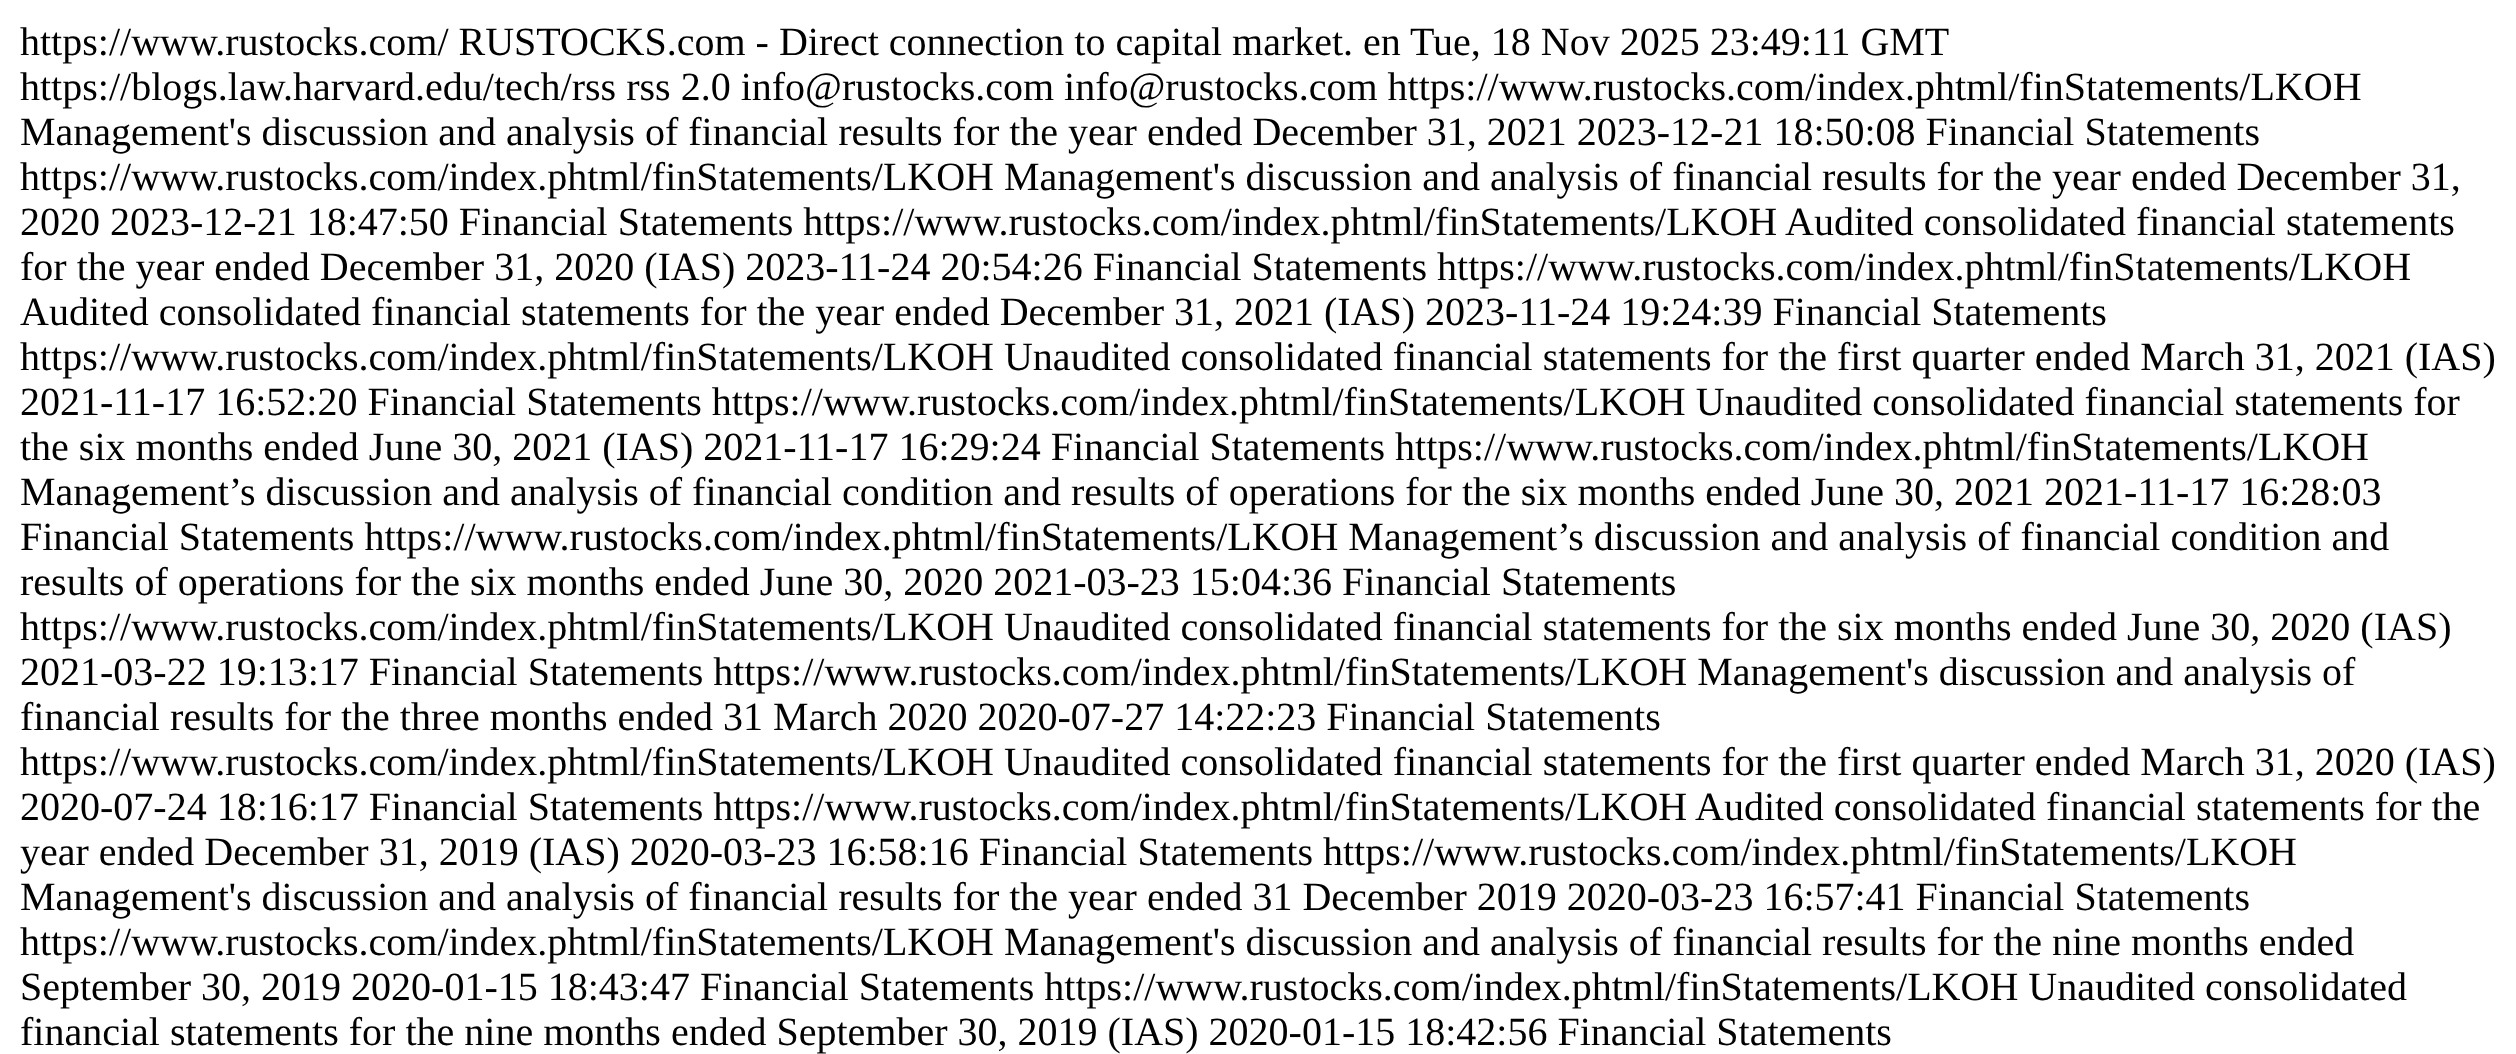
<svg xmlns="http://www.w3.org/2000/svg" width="2516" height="1054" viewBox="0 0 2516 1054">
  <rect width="100%" height="100%" fill="rgb(255,255,255)"/>
  <g font-family="Liberation Serif" font-size="40" fill="rgb(0,0,0)">
    <text x="20" y="55">https://www.rustocks.com/ RUSTOCKS.com - Direct connection to capital market. en</text>
    <text x="1410" y="55">Tue, 18 Nov 2025 23:49:11 GMT</text>
    <text>
      <tspan x="20" y="100">https://blogs.law.harvard.edu/tech/rss rss 2.0 info@rustocks.com info@rustocks.com https://www.rustocks.com/index.phtml/finStatements/LKOH</tspan>
      <tspan x="20" y="145">Management's discussion and analysis of financial results for the year ended December 31, 2021 2023-12-21 18:50:08 Financial Statements</tspan>
      <tspan x="20" y="190">https://www.rustocks.com/index.phtml/finStatements/LKOH Management's discussion and analysis of financial results for the year ended December 31,</tspan>
      <tspan x="20" y="235">2020 2023-12-21 18:47:50 Financial Statements https://www.rustocks.com/index.phtml/finStatements/LKOH</tspan>
    </text>
    <text x="1785" y="235">Audited consolidated financial statements</text>
    <text>
      <tspan x="20" y="280">for the year ended December 31, 2020 (IAS) 2023-11-24 20:54:26 Financial Statements https://www.rustocks.com/index.phtml/finStatements/LKOH</tspan>
      <tspan x="20" y="325">Audited consolidated financial statements for the year ended December 31, 2021 (IAS) 2023-11-24 19:24:39 Financial Statements</tspan>
      <tspan x="20" y="370">https://www.rustocks.com/index.phtml/finStatements/LKOH Unaudited consolidated financial statements for the first quarter ended March 31, 2021 (IAS)</tspan>
      <tspan x="20" y="415">2021-11-17 16:52:20 Financial Statements https://www.rustocks.com/index.phtml/finStatements/LKOH Unaudited consolidated financial statements for</tspan>
      <tspan x="20" y="460">the six months ended June 30, 2021 (IAS) 2021-11-17 16:29:24 Financial Statements https://www.rustocks.com/index.phtml/finStatements/LKOH</tspan>
      <tspan x="20" y="505">Management’s discussion and analysis of financial condition and results of operations for the six months ended June 30, 2021 2021-11-17 16:28:03</tspan>
      <tspan x="20" y="550">Financial Statements https://www.rustocks.com/index.phtml/finStatements/LKOH Management’s discussion and analysis of financial condition and</tspan>
      <tspan x="20" y="595">results of operations for the six months ended June 30, 2020 2021-03-23 15:04:36 Financial Statements</tspan>
      <tspan x="20" y="640">https://www.rustocks.com/index.phtml/finStatements/LKOH Unaudited consolidated financial statements for the six months ended June 30, 2020 (IAS)</tspan>
      <tspan x="20" y="685">2021-03-22 19:13:17 Financial Statements https://www.rustocks.com/index.phtml/finStatements/LKOH Management's discussion and analysis of</tspan>
      <tspan x="20" y="730">financial results for the three months ended 31 March 2020 2020-07-27 14:22:23 Financial Statements</tspan>
      <tspan x="20" y="775">https://www.rustocks.com/index.phtml/finStatements/LKOH Unaudited consolidated financial statements for the first quarter ended March 31, 2020 (IAS)</tspan>
      <tspan x="20" y="820">2020-07-24 18:16:17 Financial Statements https://www.rustocks.com/index.phtml/finStatements/LKOH</tspan>
    </text>
    <text x="1695" y="820">Audited consolidated financial statements for the</text>
    <text>
      <tspan x="20" y="865">year ended December 31, 2019 (IAS) 2020-03-23 16:58:16 Financial Statements https://www.rustocks.com/index.phtml/finStatements/LKOH</tspan>
      <tspan x="20" y="910">Management's discussion and analysis of financial results for the year ended 31 December 2019 2020-03-23 16:57:41 Financial Statements</tspan>
      <tspan x="20" y="955">https://www.rustocks.com/index.phtml/finStatements/LKOH Management's discussion and analysis of financial results for the nine months ended</tspan>
      <tspan x="20" y="1000">September 30, 2019 2020-01-15 18:43:47 Financial Statements https://www.rustocks.com/index.phtml/finStatements/LKOH Unaudited consolidated</tspan>
      <tspan x="20" y="1045">financial statements for the nine months ended September 30, 2019 (IAS) 2020-01-15 18:42:56 Financial Statements</tspan>
    </text>
  </g>
</svg>
